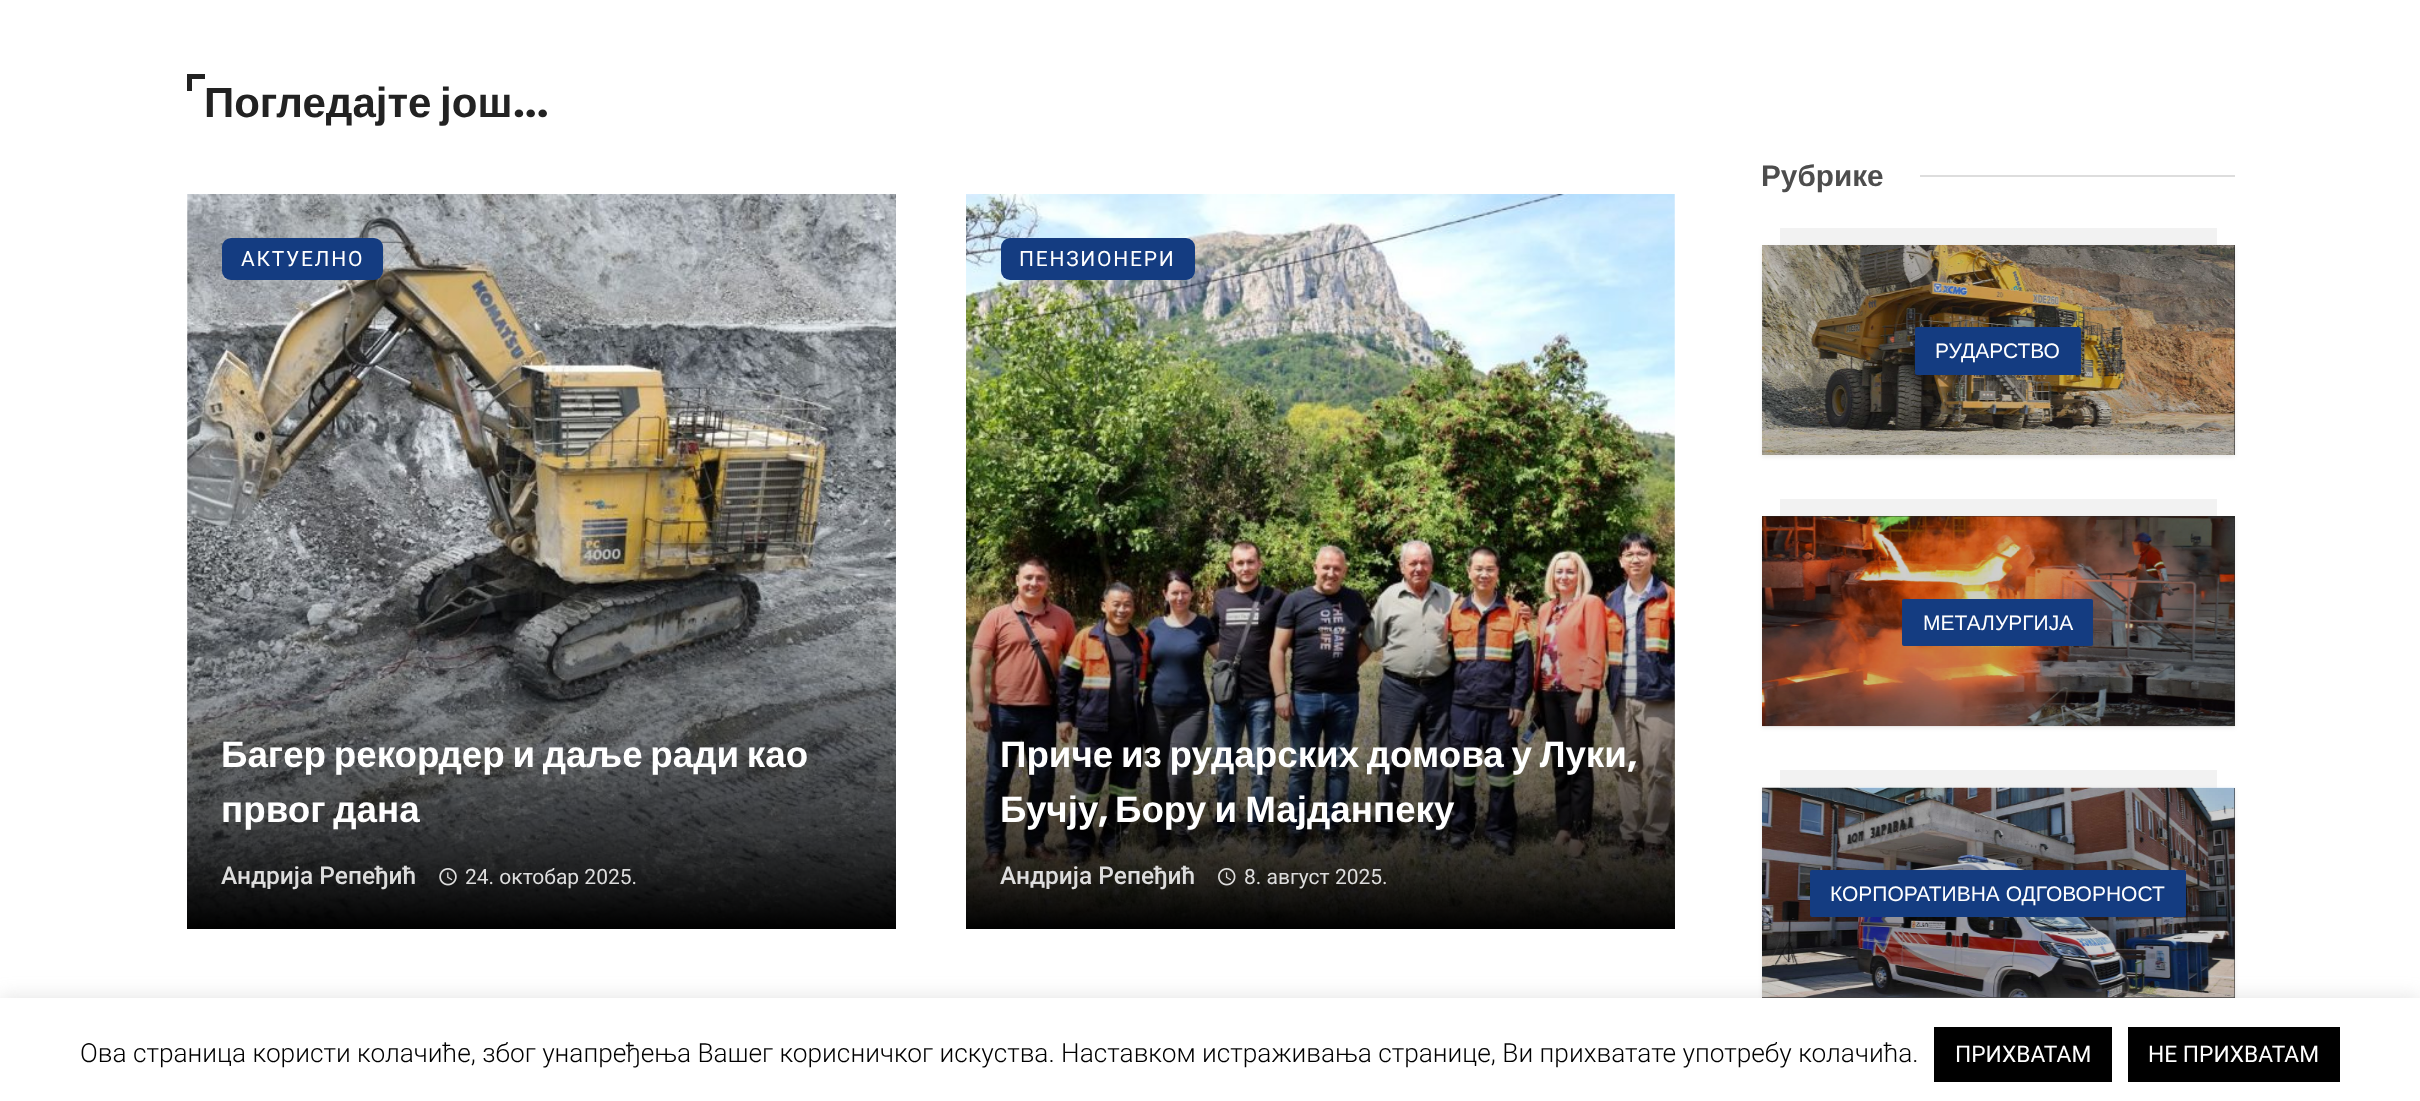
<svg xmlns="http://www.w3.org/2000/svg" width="2420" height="1101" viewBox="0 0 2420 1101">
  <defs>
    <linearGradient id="g1" gradientUnits="userSpaceOnUse" x1="542" y1="929" x2="542" y2="453"><stop offset="0" stop-color="rgb(0,0,0)"/><stop offset="0.05" stop-color="rgb(0,0,0)" stop-opacity="0.92"/><stop offset="0.11" stop-color="rgb(0,0,0)" stop-opacity="0.83"/><stop offset="0.16" stop-color="rgb(0,0,0)" stop-opacity="0.75"/><stop offset="0.21" stop-color="rgb(0,0,0)" stop-opacity="0.67"/><stop offset="0.27" stop-color="rgb(0,0,0)" stop-opacity="0.59"/><stop offset="0.33" stop-color="rgb(0,0,0)" stop-opacity="0.51"/><stop offset="0.38" stop-color="rgb(0,0,0)" stop-opacity="0.43"/><stop offset="0.45" stop-color="rgb(0,0,0)" stop-opacity="0.36"/><stop offset="0.51" stop-color="rgb(0,0,0)" stop-opacity="0.28"/><stop offset="0.58" stop-color="rgb(0,0,0)" stop-opacity="0.21"/><stop offset="0.65" stop-color="rgb(0,0,0)" stop-opacity="0.14"/><stop offset="0.73" stop-color="rgb(0,0,0)" stop-opacity="0.09"/><stop offset="0.81" stop-color="rgb(0,0,0)" stop-opacity="0.04"/><stop offset="0.91" stop-color="rgb(0,0,0)" stop-opacity="0.01"/><stop offset="1" stop-color="rgb(0,0,0)" stop-opacity="0"/></linearGradient>
    <linearGradient id="g2" gradientUnits="userSpaceOnUse" x1="1320" y1="929" x2="1320" y2="453"><stop offset="0" stop-color="rgb(0,0,0)"/><stop offset="0.05" stop-color="rgb(0,0,0)" stop-opacity="0.92"/><stop offset="0.11" stop-color="rgb(0,0,0)" stop-opacity="0.83"/><stop offset="0.16" stop-color="rgb(0,0,0)" stop-opacity="0.75"/><stop offset="0.21" stop-color="rgb(0,0,0)" stop-opacity="0.67"/><stop offset="0.27" stop-color="rgb(0,0,0)" stop-opacity="0.59"/><stop offset="0.33" stop-color="rgb(0,0,0)" stop-opacity="0.51"/><stop offset="0.38" stop-color="rgb(0,0,0)" stop-opacity="0.43"/><stop offset="0.45" stop-color="rgb(0,0,0)" stop-opacity="0.36"/><stop offset="0.51" stop-color="rgb(0,0,0)" stop-opacity="0.28"/><stop offset="0.58" stop-color="rgb(0,0,0)" stop-opacity="0.21"/><stop offset="0.65" stop-color="rgb(0,0,0)" stop-opacity="0.14"/><stop offset="0.73" stop-color="rgb(0,0,0)" stop-opacity="0.09"/><stop offset="0.81" stop-color="rgb(0,0,0)" stop-opacity="0.04"/><stop offset="0.91" stop-color="rgb(0,0,0)" stop-opacity="0.01"/><stop offset="1" stop-color="rgb(0,0,0)" stop-opacity="0"/></linearGradient>
  </defs>
  <rect width="100%" height="100%" fill="rgb(255,255,255)"/>
  <rect x="187" y="74" width="18" height="5" fill="rgb(34,34,34)"/>
  <rect x="187" y="74" width="5" height="17" fill="rgb(34,34,34)"/>
  <text x="204" y="117" word-spacing="-3" font-family="Liberation Sans" font-size="42" font-weight="bold" fill="rgb(34,34,34)">Погледајте још</text>
  <text x="513" y="117" font-family="Poppins" font-size="42" font-weight="bold" fill="rgb(34,34,34)">...</text>
  <image x="187" y="194" width="709" height="733" href="pic1.png"/>
  <rect x="222" y="238" width="161" height="42" rx="9" fill="rgb(20,60,129)"/>
  <text x="241" y="266" font-family="Roboto" font-size="21" letter-spacing="1.75" fill="rgb(255,255,255)">АКТУЕЛНО</text>
  <rect x="187" y="514" width="709" height="415" fill="url(#g1)"/>
  <g font-family="Liberation Sans" font-size="36.75" font-weight="bold" fill="rgb(255,255,255)">
    <text>
      <tspan x="221" y="767" word-spacing="-2.5">Багер рекордер и даље ради као</tspan>
      <tspan x="221" y="822" word-spacing="-2.5">првог дана</tspan>
    </text>
  </g>
  <text x="221" y="884" font-family="Roboto" font-size="24.5" font-weight="500" fill="rgb(221,221,221)">Андрија Репеђић</text>
  <image x="439" y="868" width="18" height="18" href="pic2.png"/>
  <text x="465" y="884" font-family="Roboto" font-size="21" fill="rgb(221,221,221)">24. октобар 2025.</text>
  <image x="966" y="194" width="709" height="733" href="pic3.png"/>
  <rect x="1001" y="238" width="194" height="42" rx="9" fill="rgb(20,60,129)"/>
  <text x="1019" y="266" font-family="Roboto" font-size="21" letter-spacing="1.75" fill="rgb(255,255,255)">ПЕНЗИОНЕРИ</text>
  <rect x="966" y="514" width="709" height="415" fill="url(#g2)"/>
  <text x="1000" y="767" word-spacing="-2.5" font-family="Liberation Sans" font-size="36.75" font-weight="bold" fill="rgb(255,255,255)">Приче из рударских домова у Луки</text>
  <text x="1627" y="767" font-family="Poppins" font-size="36.75" font-weight="bold" fill="rgb(255,255,255)">,</text>
  <text x="1000" y="822" font-family="Liberation Sans" font-size="36.75" font-weight="bold" fill="rgb(255,255,255)">Бучју</text>
  <text x="1098" y="822" font-family="Poppins" font-size="36.75" font-weight="bold" fill="rgb(255,255,255)">,</text>
  <text x="1115" y="822" word-spacing="-2" font-family="Liberation Sans" font-size="36.75" font-weight="bold" fill="rgb(255,255,255)">Бору и Мајданпеку</text>
  <text x="1000" y="884" font-family="Roboto" font-size="24.5" font-weight="500" fill="rgb(221,221,221)">Андрија Репеђић</text>
  <image x="1218" y="868" width="18" height="18" href="pic4.png"/>
  <text x="1244" y="884" font-family="Roboto" font-size="21" fill="rgb(221,221,221)">8. август 2025.</text>
  <text x="1761" y="186" font-family="Liberation Sans" font-size="29.75" font-weight="bold" fill="rgb(77,77,77)">Рубрике</text>
  <rect x="1920" y="175" width="315" height="2" fill="rgb(221,221,221)"/>
  <rect x="1762" y="247" width="473" height="210" fill="rgba(0,0,0,0.08)" filter="blur(2px)"/>
  <rect x="1780" y="228" width="437" height="17" fill="rgba(0,0,0,0.05)"/>
  <rect x="2234" y="245" width="1" height="210" fill="rgb(51,51,51)"/>
  <image x="1762" y="245" width="473" height="210" href="pic5.png"/>
  <rect x="1762" y="245" width="473" height="210" fill="rgba(17,17,17,0.2)"/>
  <rect x="1915" y="327" width="166" height="48" rx="2" fill="rgb(20,60,129)"/>
  <text x="1935" y="358" font-family="Liberation Sans" font-size="21" fill="rgb(255,255,255)">РУДАРСТВО</text>
  <rect x="1762" y="518" width="473" height="210" fill="rgba(0,0,0,0.08)" filter="blur(2px)"/>
  <rect x="1780" y="499" width="437" height="17" fill="rgba(0,0,0,0.05)"/>
  <rect x="1762" y="516" width="473" height="210" fill="rgb(51,51,51)"/>
  <image x="1762" y="516" width="473" height="211" href="pic6.png"/>
  <rect x="1762" y="516" width="473" height="210" fill="rgba(17,17,17,0.2)"/>
  <rect x="1902" y="599" width="191" height="47" rx="2" fill="rgb(20,60,129)"/>
  <text x="1923" y="630" font-family="Liberation Sans" font-size="21" fill="rgb(255,255,255)">МЕТАЛУРГИЈА</text>
  <rect x="1762" y="789" width="473" height="210" fill="rgba(0,0,0,0.08)" filter="blur(2px)"/>
  <rect x="1780" y="770" width="437" height="18" fill="rgba(0,0,0,0.05)"/>
  <rect x="1762" y="788" width="473" height="210" fill="rgb(51,51,51)"/>
  <image x="1762" y="787" width="473" height="211" href="pic7.png"/>
  <rect x="1762" y="788" width="473" height="210" fill="rgba(17,17,17,0.2)"/>
  <rect x="1810" y="870" width="376" height="47" rx="2" fill="rgb(20,60,129)"/>
  <text x="1830" y="901" font-family="Liberation Sans" font-size="21" fill="rgb(255,255,255)">КОРПОРАТИВНА ОДГОВОРНОСТ</text>
  <rect x="0" y="996" width="2420" height="105" fill="rgba(172,171,171,0.3)" filter="blur(9px)"/>
  <rect x="0" y="998" width="2420" height="103" fill="rgb(255,255,255)"/>
  <text x="80" y="1062" font-family="Roboto" font-size="26.25" font-weight="300" fill="rgb(0,0,0)">Ова страница користи колачиће, због унапређења Вашег корисничког искуства. Наставком истраживања странице, Ви прихватате употребу колачића.</text>
  <rect x="1934" y="1027" width="178" height="55" fill="rgb(0,0,0)"/>
  <text x="1955" y="1062" font-family="Roboto" font-size="22.75" fill="rgb(255,255,255)">ПРИХВАТАМ</text>
  <rect x="2128" y="1027" width="212" height="55" fill="rgb(0,0,0)"/>
  <text x="2148" y="1062" font-family="Roboto" font-size="22.75" fill="rgb(255,255,255)">НЕ ПРИХВАТАМ</text>
</svg>
